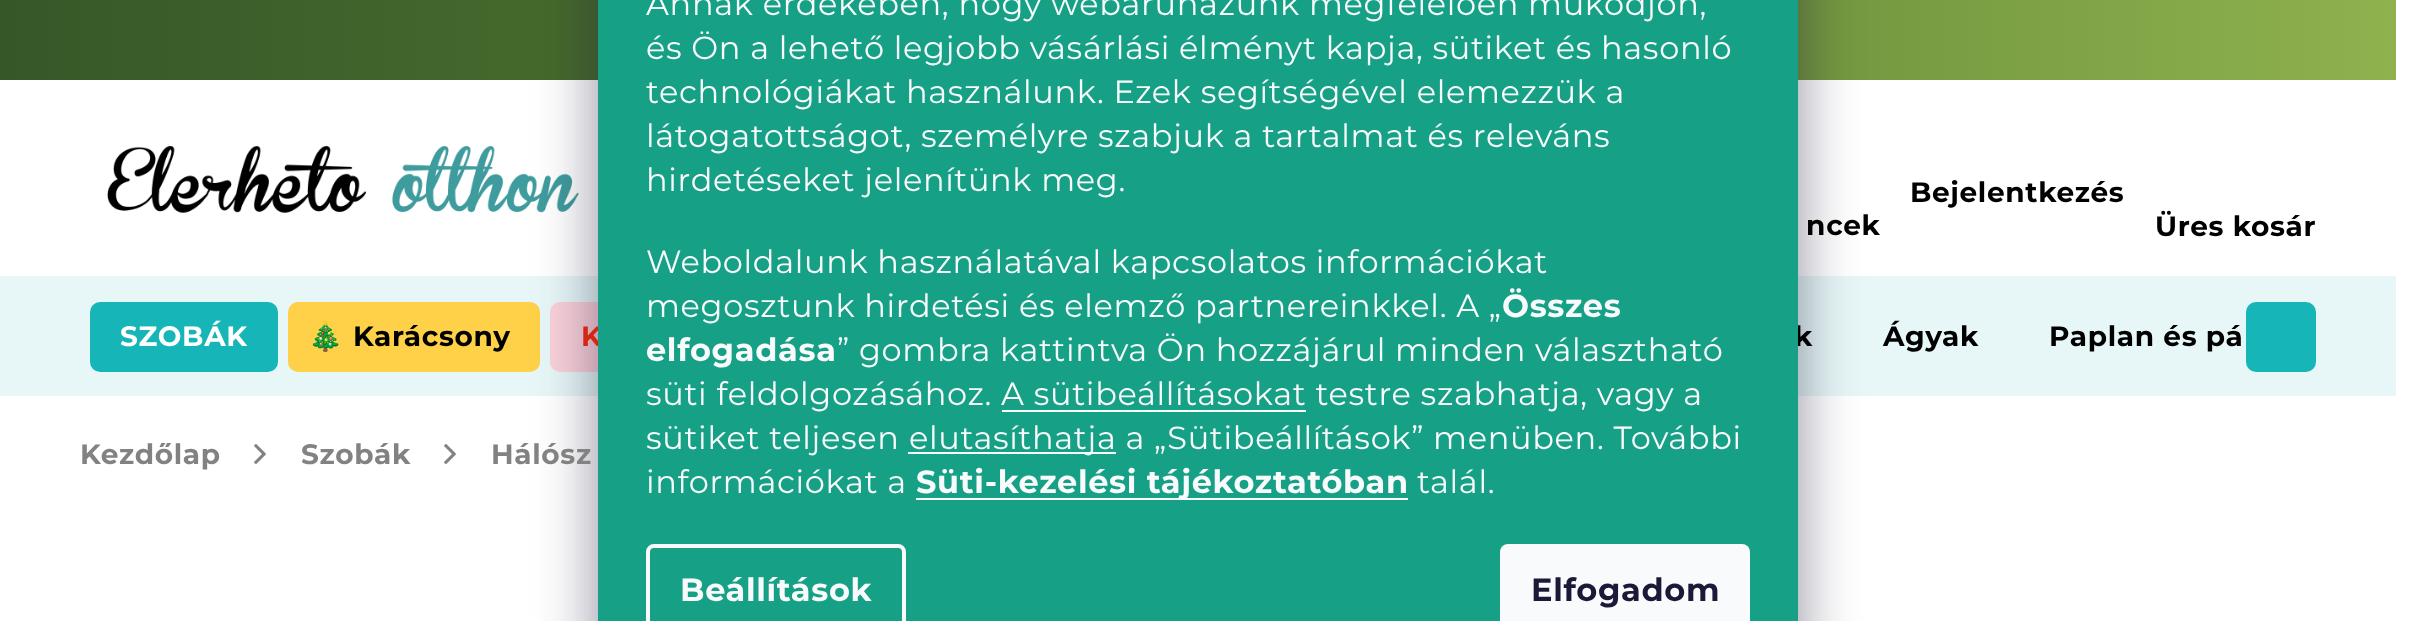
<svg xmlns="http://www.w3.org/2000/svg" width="2426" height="621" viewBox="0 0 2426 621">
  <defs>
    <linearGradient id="g1" gradientUnits="userSpaceOnUse" x1="0" y1="40" x2="2396" y2="40"><stop offset="0" stop-color="rgb(53,88,41)"/><stop offset="0.5" stop-color="rgb(86,125,48)"/><stop offset="1" stop-color="rgb(143,177,78)"/></linearGradient>
  </defs>
  <rect width="100%" height="100%" fill="rgb(255,255,255)"/>
  <rect x="0" y="0" width="2396" height="80" fill="url(#g1)"/>
  <image x="107" y="146" width="472" height="67" href="pic1.png"/>
  <rect x="0" y="276" width="2396" height="120" fill="rgb(231,247,247)"/>
  <rect x="288" y="302" width="252" height="70" rx="10" fill="rgb(254,209,72)"/>
  <rect x="550" y="302" width="386" height="70" rx="10" fill="rgb(250,209,217)"/>
  <rect x="598" y="-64" width="1200" height="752" rx="16" fill="rgba(27,25,57,0.5)" filter="blur(30px)"/>
  <text x="581" y="346" font-family="Montserrat" font-size="28" font-weight="bold" letter-spacing="0.67" fill="rgb(211,39,20)">K</text>
  <text x="1794" y="346" font-family="Montserrat" font-size="28" font-weight="bold" letter-spacing="0.67" fill="rgb(0,0,0)">k</text>
  <rect x="598" y="0" width="1200" height="621" fill="rgb(22,160,133)"/>
  <g font-family="Montserrat" font-size="32" letter-spacing="0.67" fill="rgb(248,250,251)">
    <text>
      <tspan x="646" y="15">Annak érdekében, hogy webáruházunk megfelelően működjön,</tspan>
      <tspan x="646" y="59">és Ön a lehető legjobb vásárlási élményt kapja, sütiket és hasonló</tspan>
      <tspan x="646" y="103">technológiákat használunk. Ezek segítségével elemezzük a</tspan>
      <tspan x="646" y="147">látogatottságot, személyre szabjuk a tartalmat és releváns</tspan>
      <tspan x="646" y="191">hirdetéseket jelenítünk meg.</tspan>
    </text>
    <text>
      <tspan x="646" y="273">Weboldalunk használatával kapcsolatos információkat</tspan>
      <tspan x="646" y="317">megosztunk hirdetési és elemző partnereinkkel. A „</tspan>
    </text>
  </g>
  <g font-family="Montserrat" font-size="32" font-weight="bold" letter-spacing="0.67" fill="rgb(248,250,251)">
    <text x="1502" y="317">Összes</text>
    <text x="646" y="361">elfogadása</text>
  </g>
  <g font-family="Montserrat" font-size="32" letter-spacing="0.67" fill="rgb(248,250,251)">
    <text x="837" y="361">” gombra kattintva Ön hozzájárul minden választható</text>
    <text x="646" y="405">süti feldolgozásához. A sütibeállításokat testre szabhatja, vagy a</text>
  </g>
  <rect x="1002" y="410" width="304" height="2" fill="rgb(248,250,251)"/>
  <text x="646" y="449" font-family="Montserrat" font-size="32" letter-spacing="0.67" fill="rgb(248,250,251)">sütiket teljesen</text>
  <rect x="908" y="452" width="208" height="2" fill="rgb(248,250,251)"/>
  <g font-family="Montserrat" font-size="32" letter-spacing="0.67" fill="rgb(248,250,251)">
    <text x="909" y="449">elutasíthatja a „Sütibeállítások” menüben. További</text>
    <text x="646" y="493">információkat a</text>
  </g>
  <rect x="916" y="498" width="492" height="2" fill="rgb(248,250,251)"/>
  <text x="916" y="493" font-family="Montserrat" font-size="32" font-weight="bold" letter-spacing="0.67" fill="rgb(248,250,251)">Süti-kezelési tájékoztatóban</text>
  <text x="1417" y="493" font-family="Montserrat" font-size="32" letter-spacing="0.67" fill="rgb(248,250,251)">talál.</text>
  <rect x="648" y="546" width="256" height="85" rx="6" fill="none" stroke="rgb(248,250,251)" stroke-width="4"/>
  <text x="680" y="601" font-family="Montserrat" font-size="32" font-weight="bold" letter-spacing="0.67" fill="rgb(248,250,251)">Beállítások</text>
  <rect x="1500" y="544" width="250" height="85" rx="8" fill="rgb(248,250,251)"/>
  <text x="1531" y="601" font-family="Montserrat" font-size="32" font-weight="bold" letter-spacing="0.67" fill="rgb(26,25,55)">Elfogadom</text>
  <g font-family="Montserrat" font-size="28" font-weight="bold" letter-spacing="0.67" fill="rgb(0,0,0)">
    <text x="1910" y="202">Bejelentkezés</text>
    <text x="1806" y="235">ncek</text>
    <text x="2155" y="236">Üres kosár</text>
  </g>
  <rect x="90" y="302" width="188" height="70" rx="10" fill="rgb(22,182,184)"/>
  <text x="120" y="346" font-family="Montserrat" font-size="28" font-weight="bold" letter-spacing="0.67" fill="rgb(255,255,255)">SZOBÁK</text>
  <text x="308" y="346" font-family="Noto Color Emoji" font-size="28" font-weight="bold" letter-spacing="0.67" fill="rgb(0,0,0)">🎄</text>
  <g font-family="Montserrat" font-size="28" font-weight="bold" letter-spacing="0.67" fill="rgb(0,0,0)">
    <text x="353" y="346">Karácsony</text>
    <text x="1883" y="346">Ágyak</text>
    <text x="2049" y="346">Paplan és pá</text>
  </g>
  <rect x="2246" y="302" width="70" height="70" rx="10" fill="rgb(22,182,184)"/>
  <text x="80" y="464" font-family="Montserrat" font-size="28" font-weight="bold" letter-spacing="0.67" fill="rgb(130,130,130)">Kezdőlap</text>
  <image x="254" y="444" width="12" height="20" href="pic2.png"/>
  <text x="301" y="464" font-family="Montserrat" font-size="28" font-weight="bold" letter-spacing="0.67" fill="rgb(130,130,130)">Szobák</text>
  <image x="444" y="444" width="12" height="20" href="pic3.png"/>
  <text x="491" y="464" font-family="Montserrat" font-size="28" font-weight="bold" letter-spacing="0.67" fill="rgb(130,130,130)">Hálósz</text>
</svg>
